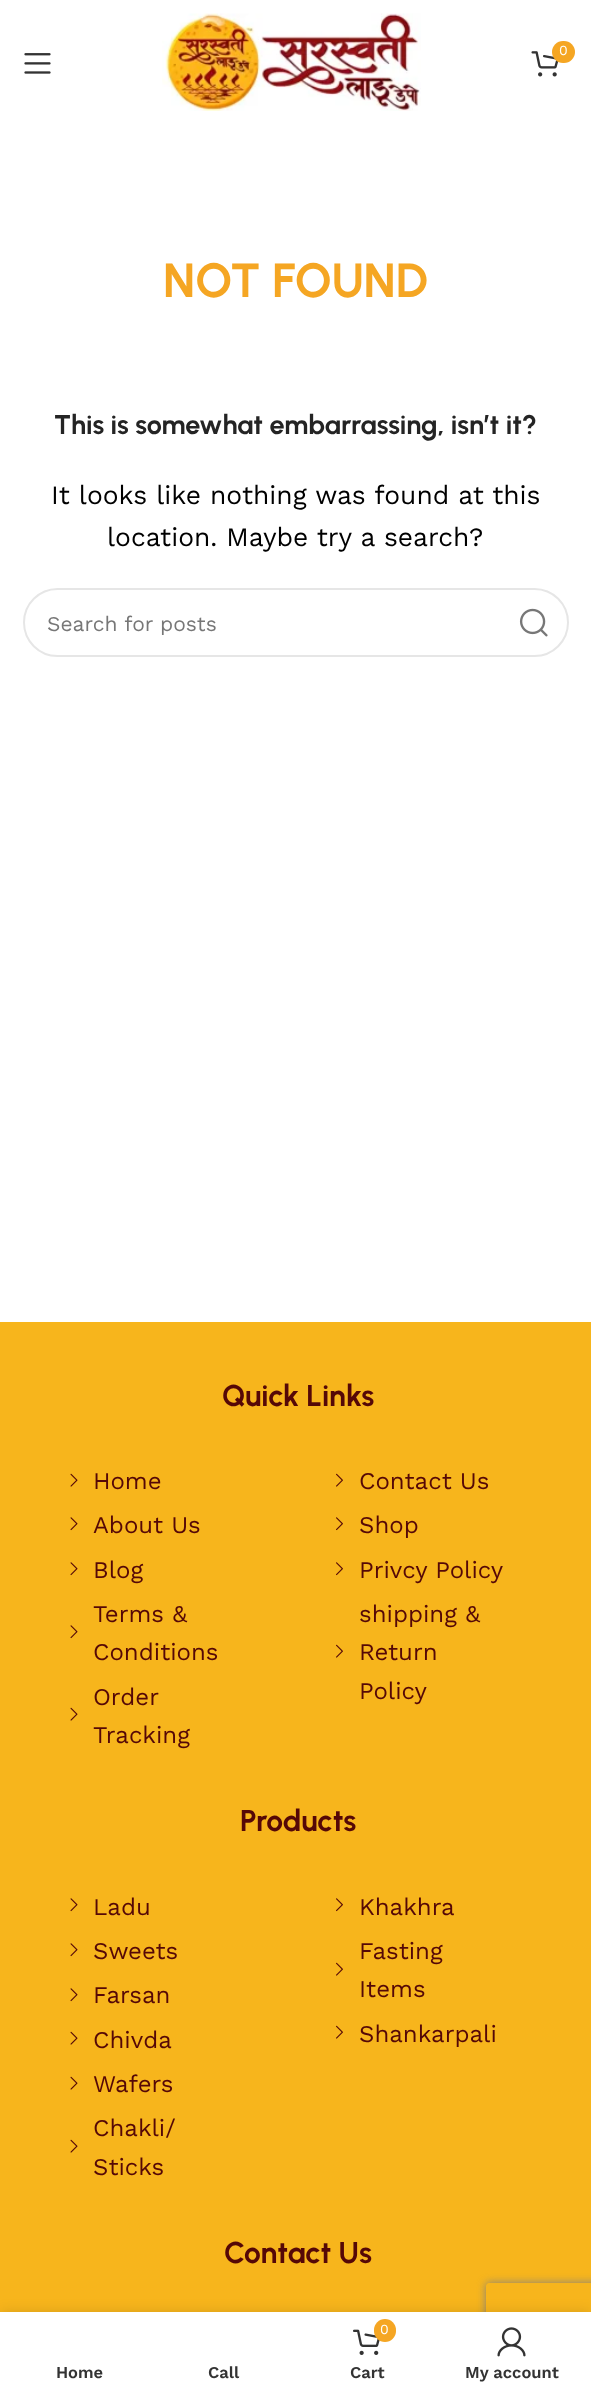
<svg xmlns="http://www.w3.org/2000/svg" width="591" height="2393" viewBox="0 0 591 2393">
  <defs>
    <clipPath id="clip1"><rect x="47" y="611" width="406" height="24"/></clipPath>
    <clipPath id="clip2"><path d="M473 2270H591V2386H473ZM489 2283H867C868.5 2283 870 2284.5 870 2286V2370C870 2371.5 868.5 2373 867 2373H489C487.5 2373 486 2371.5 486 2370V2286C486 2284.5 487.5 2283 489 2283Z" clip-rule="evenodd"/></clipPath>
  </defs>
  <rect width="100%" height="100%" fill="rgb(255,255,255)"/>
  <image x="162" y="13" width="259" height="98" href="pic1.png"/>
  <image x="531" y="51" width="28" height="26" href="pic2.png"/>
  <rect x="552" y="41" width="23" height="22" rx="11" fill="rgb(245,166,35)"/>
  <text x="559" y="55" font-family="Work Sans" font-size="14" fill="rgb(255,255,255)">0</text>
  <image x="24" y="53" width="27" height="21" href="pic3.png"/>
  <text x="163" y="297" font-family="Urbanist" font-size="48" font-weight="bold" fill="rgb(245,166,35)">NOT FOUND</text>
  <text x="54" y="434" font-family="Urbanist" font-size="27" font-weight="bold" fill="rgb(36,36,36)">This is somewhat embarrassing, isn’t it?</text>
  <g font-family="Work Sans" font-size="26.4" fill="rgb(0,0,0)">
    <text x="51" y="504">It looks like nothing was found at this</text>
    <text x="107" y="546">location. Maybe try a search?</text>
  </g>
  <rect x="24" y="589" width="544" height="67" rx="33.5" fill="none" stroke="rgb(230,230,230)" stroke-width="2"/>
  <g clip-path="url(#clip1)">
    <text x="47" y="631" font-family="Work Sans" font-size="21" fill="rgb(119,119,119)">Search for posts</text>
  </g>
  <image x="519" y="608" width="29" height="29" href="pic4.png"/>
  <rect x="0" y="1322" width="591" height="990" fill="rgb(247,181,28)"/>
  <text x="222" y="1406" font-family="Urbanist" font-size="30" font-weight="bold" fill="rgb(85,8,7)">Quick Links</text>
  <image x="70" y="1473" width="8" height="14" href="pic5.png"/>
  <text x="93" y="1489" font-family="Work Sans" font-size="24" fill="rgb(85,8,7)">Home</text>
  <image x="70" y="1517" width="8" height="14" href="pic6.png"/>
  <text x="93" y="1533" font-family="Work Sans" font-size="24" fill="rgb(85,8,7)">About Us</text>
  <image x="70" y="1562" width="8" height="14" href="pic6.png"/>
  <text x="93" y="1578" font-family="Work Sans" font-size="24" fill="rgb(85,8,7)">Blog</text>
  <image x="70" y="1625" width="8" height="14" href="pic6.png"/>
  <g font-family="Work Sans" font-size="24" fill="rgb(85,8,7)">
    <text>
      <tspan x="93" y="1622">Terms &amp;</tspan>
      <tspan x="93" y="1660">Conditions</tspan>
    </text>
  </g>
  <image x="70" y="1707" width="8" height="14" href="pic5.png"/>
  <g font-family="Work Sans" font-size="24" fill="rgb(85,8,7)">
    <text>
      <tspan x="93" y="1705">Order</tspan>
      <tspan x="93" y="1743">Tracking</tspan>
    </text>
  </g>
  <image x="336" y="1473" width="7" height="14" href="pic7.png"/>
  <text x="359" y="1489" font-family="Work Sans" font-size="24" fill="rgb(85,8,7)">Contact Us</text>
  <image x="336" y="1517" width="7" height="14" href="pic8.png"/>
  <text x="359" y="1533" font-family="Work Sans" font-size="24" fill="rgb(85,8,7)">Shop</text>
  <image x="336" y="1562" width="7" height="14" href="pic8.png"/>
  <text x="359" y="1578" font-family="Work Sans" font-size="24" fill="rgb(85,8,7)">Privcy Policy</text>
  <image x="336" y="1644" width="7" height="14" href="pic7.png"/>
  <g font-family="Work Sans" font-size="24" fill="rgb(85,8,7)">
    <text>
      <tspan x="359" y="1622">shipping &amp;</tspan>
      <tspan x="359" y="1660">Return</tspan>
      <tspan x="359" y="1699">Policy</tspan>
    </text>
  </g>
  <text x="240" y="1831" font-family="Urbanist" font-size="30" font-weight="bold" fill="rgb(85,8,7)">Products</text>
  <image x="70" y="1898" width="8" height="14" href="pic6.png"/>
  <text x="93" y="1915" font-family="Work Sans" font-size="24" fill="rgb(85,8,7)">Ladu</text>
  <image x="70" y="1943" width="8" height="14" href="pic6.png"/>
  <text x="93" y="1959" font-family="Work Sans" font-size="24" fill="rgb(85,8,7)">Sweets</text>
  <image x="70" y="1988" width="8" height="14" href="pic6.png"/>
  <text x="93" y="2003" font-family="Work Sans" font-size="24" fill="rgb(85,8,7)">Farsan</text>
  <image x="70" y="2031" width="8" height="14" href="pic5.png"/>
  <text x="93" y="2048" font-family="Work Sans" font-size="24" fill="rgb(85,8,7)">Chivda</text>
  <image x="70" y="2076" width="8" height="14" href="pic5.png"/>
  <text x="93" y="2092" font-family="Work Sans" font-size="24" fill="rgb(85,8,7)">Wafers</text>
  <image x="70" y="2139" width="8" height="14" href="pic5.png"/>
  <g font-family="Work Sans" font-size="24" fill="rgb(85,8,7)">
    <text>
      <tspan x="93" y="2136">Chakli/</tspan>
      <tspan x="93" y="2175">Sticks</tspan>
    </text>
  </g>
  <image x="336" y="1898" width="7" height="14" href="pic8.png"/>
  <text x="359" y="1915" font-family="Work Sans" font-size="24" fill="rgb(85,8,7)">Khakhra</text>
  <image x="336" y="1962" width="7" height="14" href="pic7.png"/>
  <g font-family="Work Sans" font-size="24" fill="rgb(85,8,7)">
    <text>
      <tspan x="359" y="1959">Fasting</tspan>
      <tspan x="359" y="1997">Items</tspan>
    </text>
  </g>
  <image x="336" y="2025" width="7" height="14" href="pic7.png"/>
  <text x="359" y="2042" font-family="Work Sans" font-size="24" fill="rgb(85,8,7)">Shankarpali</text>
  <text x="224" y="2263" font-family="Urbanist" font-size="30" font-weight="bold" fill="rgb(85,8,7)">Contact Us</text>
  <g clip-path="url(#clip2)">
    <rect x="486" y="2283" width="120" height="90" rx="3" fill="rgb(128,128,128)" filter="blur(4px)"/>
  </g>
  <rect x="0" y="2312" width="591" height="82" fill="rgba(0,0,0,0.12)" filter="blur(7px)"/>
  <rect x="0" y="2312" width="591" height="81" fill="rgb(255,255,255)"/>
  <g font-family="Work Sans" font-size="16.5" font-weight="600" fill="rgb(51,51,51)">
    <text x="56" y="2378">Home</text>
    <text x="208" y="2378">Call</text>
  </g>
  <image x="353" y="2329" width="27" height="26" href="pic9.png"/>
  <rect x="374" y="2319" width="22" height="23" rx="11" fill="rgb(245,166,35)"/>
  <text x="380" y="2334" font-family="Work Sans" font-size="14" fill="rgb(255,255,255)">0</text>
  <text x="350" y="2378" font-family="Work Sans" font-size="16.5" font-weight="600" fill="rgb(51,51,51)">Cart</text>
  <image x="497" y="2327" width="29" height="30" href="pic10.png"/>
  <text x="465" y="2378" font-family="Work Sans" font-size="16.5" font-weight="600" fill="rgb(51,51,51)">My account</text>
</svg>
